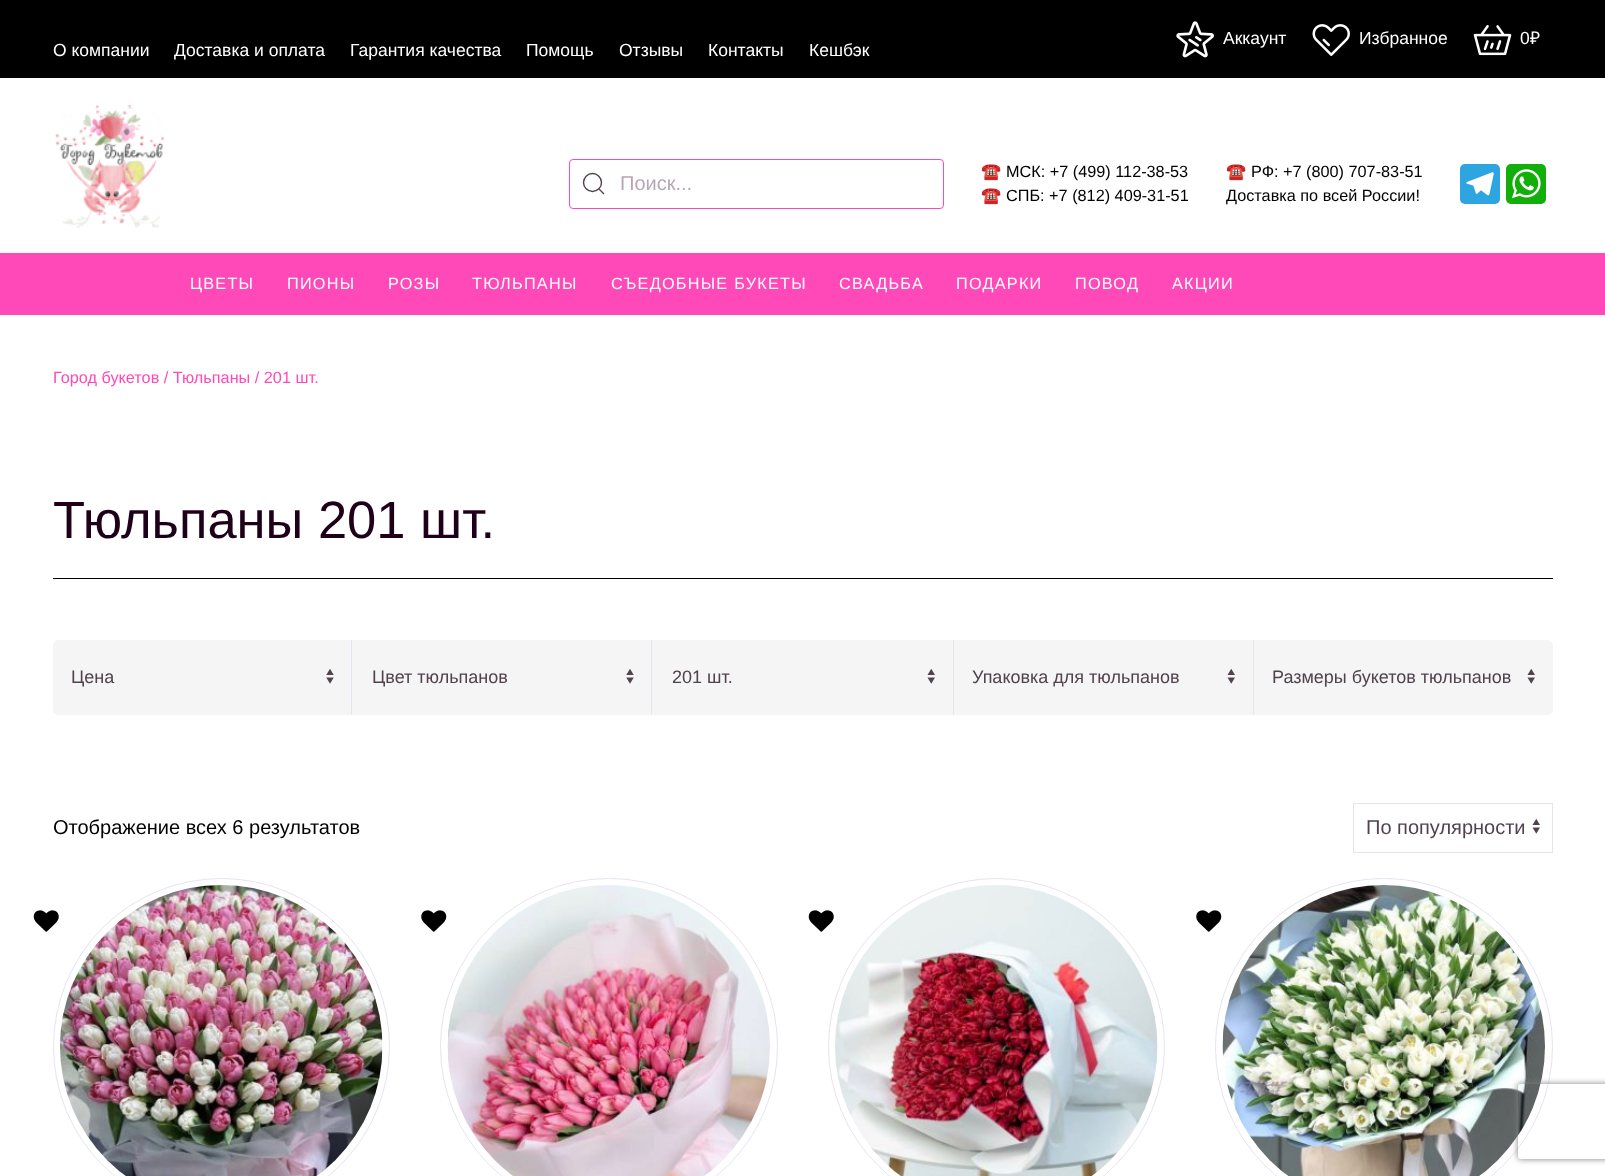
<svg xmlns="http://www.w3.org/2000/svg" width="1605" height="1176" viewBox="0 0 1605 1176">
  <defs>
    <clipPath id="clip1"><path d="M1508 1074H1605V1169H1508ZM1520.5 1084H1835.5C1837 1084 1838 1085 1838 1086.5V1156.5C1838 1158 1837 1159 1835.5 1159H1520.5C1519 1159 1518 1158 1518 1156.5V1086.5C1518 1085 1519 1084 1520.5 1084Z" clip-rule="evenodd"/></clipPath>
  </defs>
  <rect width="100%" height="100%" fill="rgb(255,255,255)"/>
  <rect x="0" y="0" width="1605" height="78" fill="rgb(0,0,0)"/>
  <image x="1176" y="21" width="38" height="37" href="pic1.png"/>
  <text x="1223" y="44" font-family="Liberation Sans" font-size="17.5" fill="rgb(255,255,255)">Аккаунт</text>
  <image x="1312" y="24" width="38" height="32" href="pic2.png"/>
  <text x="1359" y="44" font-family="Liberation Sans" font-size="17.5" fill="rgb(255,255,255)">Избранное</text>
  <image x="1473" y="25" width="39" height="31" href="pic3.png"/>
  <text x="1520" y="44" font-family="Liberation Sans" font-size="17.5" fill="rgb(255,255,255)">0</text>
  <text x="1530" y="44" font-family="Noto Sans" font-size="17.5" fill="rgb(255,255,255)">₽</text>
  <g font-family="Liberation Sans" font-size="17.5" fill="rgb(255,255,255)">
    <text x="53" y="56">О компании</text>
    <text x="174" y="56">Доставка и оплата</text>
    <text x="350" y="56">Гарантия качества</text>
    <text x="526" y="56">Помощь</text>
    <text x="619" y="56">Отзывы</text>
    <text x="708" y="56">Контакты</text>
    <text x="809" y="56">Кешбэк</text>
  </g>
  <image x="55" y="104" width="110" height="124" href="pic4.png"/>
  <rect x="569.5" y="159.5" width="374" height="49" rx="3.5" fill="none" stroke="rgb(255,73,185)"/>
  <circle cx="592.5" cy="182.5" r="9" fill="none" stroke="rgb(81,66,78)" stroke-width="1.4"/>
  <path d="M599 189L604 194Z" fill="none" stroke="rgb(81,66,78)" stroke-width="1.4"/>
  <text x="620" y="190" font-family="Liberation Sans" font-size="20" fill="rgb(184,166,180)">Поиск...</text>
  <text x="981" y="177" font-family="Noto Color Emoji" font-size="16.25" fill="rgb(0,0,0)">☎️</text>
  <text x="1006" y="177" font-family="Liberation Sans" font-size="16.25" fill="rgb(0,0,0)">МСК: +7 (499) 112-38-53</text>
  <text x="981" y="201" font-family="Noto Color Emoji" font-size="16.25" fill="rgb(0,0,0)">☎️</text>
  <text x="1006" y="201" font-family="Liberation Sans" font-size="16.25" fill="rgb(0,0,0)">СПБ: +7 (812) 409-31-51</text>
  <text x="1226" y="177" font-family="Noto Color Emoji" font-size="16.25" fill="rgb(0,0,0)">☎️</text>
  <g font-family="Liberation Sans" font-size="16.25" fill="rgb(0,0,0)">
    <text x="1251" y="177">РФ: +7 (800) 707-83-51</text>
    <text x="1226" y="201">Доставка по всей России!</text>
  </g>
  <rect x="1460" y="164" width="40" height="40" rx="5" fill="rgb(44,165,224)"/>
  <image x="1466" y="172" width="28" height="24" href="pic5.png"/>
  <rect x="1506" y="164" width="40" height="40" rx="5" fill="rgb(18,175,10)"/>
  <image x="1512" y="169" width="29" height="30" href="pic6.png"/>
  <rect x="0" y="253" width="1605" height="62" fill="rgb(255,73,185)"/>
  <g font-family="Liberation Sans" font-size="16.25" letter-spacing="1.25" fill="rgb(255,255,255)">
    <text x="190" y="289">ЦВЕТЫ</text>
    <text x="287" y="289">ПИОНЫ</text>
    <text x="388" y="289">РОЗЫ</text>
    <text x="472" y="289">ТЮЛЬПАНЫ</text>
    <text x="611" y="289">СЪЕДОБНЫЕ БУКЕТЫ</text>
    <text x="839" y="289">СВАДЬБА</text>
    <text x="956" y="289">ПОДАРКИ</text>
    <text x="1075" y="289">ПОВОД</text>
    <text x="1172" y="289">АКЦИИ</text>
  </g>
  <text x="53" y="383" font-family="Liberation Sans" font-size="16.25" fill="rgb(255,73,185)">Город букетов / Тюльпаны / 201 шт.</text>
  <text x="53" y="538" font-family="Liberation Sans" font-size="52.5" fill="rgb(31,0,25)">Тюльпаны 201 шт.</text>
  <rect x="53" y="578" width="1500" height="1" fill="rgb(0,0,0)"/>
  <path d="M59 640H353V715H59C55.5 715 53 712.5 53 709V646C53 642.5 55.5 640 59 640Z" fill="rgb(245,245,245)"/>
  <rect x="351" y="640" width="1" height="75" fill="rgb(230,228,239)"/>
  <image x="326" y="669" width="8" height="15" href="pic7.png"/>
  <text x="71" y="683" font-family="Liberation Sans" font-size="18" fill="rgb(81,66,78)">Цена</text>
  <rect x="353" y="640" width="600" height="75" fill="rgb(245,245,245)"/>
  <rect x="651" y="640" width="1" height="75" fill="rgb(230,228,239)"/>
  <image x="626" y="669" width="8" height="15" href="pic7.png"/>
  <text x="372" y="683" font-family="Liberation Sans" font-size="18" fill="rgb(81,66,78)">Цвет тюльпанов</text>
  <rect x="953" y="640" width="1" height="75" fill="rgb(230,228,239)"/>
  <image x="927" y="668" width="8" height="16" href="pic8.png"/>
  <text x="672" y="683" font-family="Liberation Sans" font-size="18" fill="rgb(81,66,78)">201 шт.</text>
  <rect x="954" y="640" width="299" height="75" fill="rgb(245,245,245)"/>
  <rect x="1253" y="640" width="1" height="75" fill="rgb(230,228,239)"/>
  <image x="1227" y="668" width="8" height="16" href="pic8.png"/>
  <text x="972" y="683" font-family="Liberation Sans" font-size="18" fill="rgb(81,66,78)">Упаковка для тюльпанов</text>
  <path d="M1254 640H1547C1550.5 640 1553 642.5 1553 646V709C1553 712.5 1550.5 715 1547 715H1254Z" fill="rgb(245,245,245)"/>
  <image x="1527" y="668" width="8" height="16" href="pic8.png"/>
  <text x="1272" y="683" font-family="Liberation Sans" font-size="18" fill="rgb(81,66,78)">Размеры букетов тюльпанов</text>
  <text x="53" y="834" font-family="Liberation Sans" font-size="20" fill="rgb(0,0,0)">Отображение всех 6 результатов</text>
  <image x="1532" y="818" width="8" height="16" href="pic9.png"/>
  <rect x="1353.5" y="803.5" width="199" height="49" fill="none" stroke="rgb(229,229,229)"/>
  <text x="1366" y="834" font-family="Liberation Sans" font-size="20" fill="rgb(81,66,78)">По популярности</text>
  <circle cx="221.5" cy="1046.5" r="168" fill="none" stroke="rgb(230,228,239)"/>
  <image x="33" y="910" width="26" height="22" href="pic10.png"/>
  <image x="60" y="885" width="323" height="291" href="pic11.png"/>
  <rect x="440.5" y="878.5" width="337" height="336" rx="168" fill="none" stroke="rgb(230,228,239)"/>
  <image x="421" y="910" width="26" height="22" href="pic12.png"/>
  <image x="447" y="885" width="323" height="291" href="pic13.png"/>
  <circle cx="996.5" cy="1046.5" r="168" fill="none" stroke="rgb(230,228,239)"/>
  <image x="808" y="910" width="26" height="22" href="pic10.png"/>
  <image x="835" y="885" width="323" height="291" href="pic14.png"/>
  <rect x="1215.5" y="878.5" width="337" height="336" rx="168" fill="none" stroke="rgb(230,228,239)"/>
  <image x="1196" y="910" width="26" height="22" href="pic12.png"/>
  <image x="1222" y="885" width="323" height="291" href="pic15.png"/>
  <g clip-path="url(#clip1)">
    <rect x="1518" y="1084" width="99" height="75" rx="2.5" fill="rgb(128,128,128)" filter="blur(3px)"/>
  </g>
</svg>
